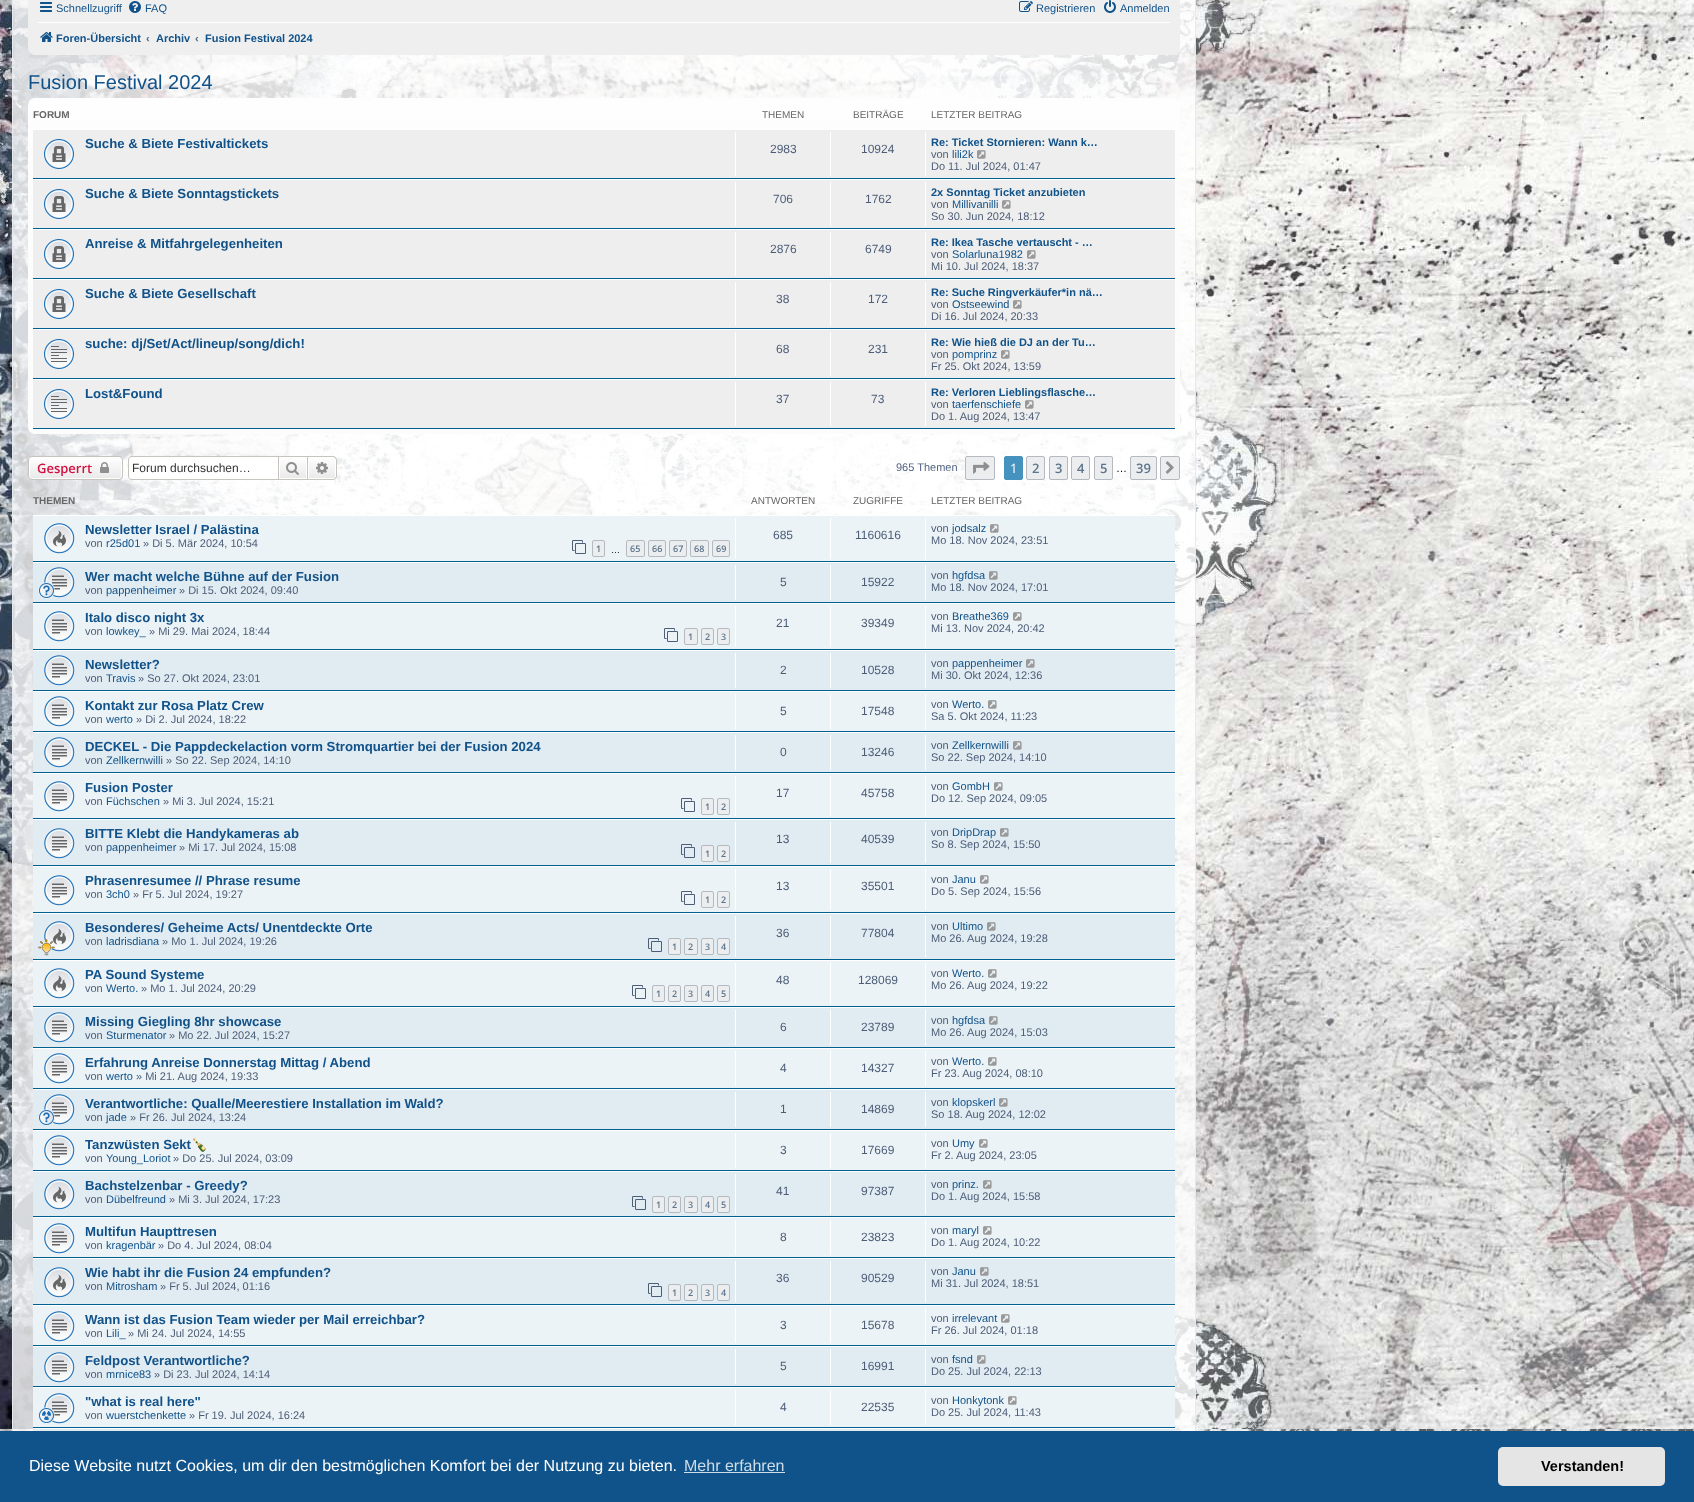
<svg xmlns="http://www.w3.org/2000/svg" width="1694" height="1502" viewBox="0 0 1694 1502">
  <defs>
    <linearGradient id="g1" gradientUnits="userSpaceOnUse" x1="604" y1="98" x2="604" y2="434"><stop offset="0" stop-color="rgb(253,253,253)"/><stop offset="0.01" stop-color="rgb(254,254,254)"/><stop offset="0.27" stop-color="rgb(252,252,252)"/><stop offset="1" stop-color="rgb(252,252,252)"/></linearGradient>
    <clipPath id="clip1"><rect x="28" y="456" width="95" height="24" rx="4"/></clipPath>
    <linearGradient id="g2" gradientUnits="userSpaceOnUse" x1="76" y1="457" x2="76" y2="479"><stop offset="0" stop-color="rgb(255,255,255)"/><stop offset="1" stop-color="rgb(233,233,233)"/></linearGradient>
    <linearGradient id="g3" gradientUnits="userSpaceOnUse" x1="293" y1="457" x2="293" y2="479"><stop offset="0" stop-color="rgb(255,255,255)"/><stop offset="1" stop-color="rgb(233,233,233)"/></linearGradient>
    <linearGradient id="g4" gradientUnits="userSpaceOnUse" x1="322" y1="457" x2="322" y2="479"><stop offset="0" stop-color="rgb(255,255,255)"/><stop offset="1" stop-color="rgb(233,233,233)"/></linearGradient>
  </defs>
  <rect width="100%" height="100%" fill="rgb(255,255,255)"/>
  <image x="0" y="0" width="1694" height="1431" href="pic1.png"/>
  <rect x="13" y="0" width="1182" height="1431" fill="rgba(255,255,255,0.8)"/>
  <rect x="12.5" y="-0.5" width="1183" height="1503" fill="none" stroke="rgb(230,233,237)"/>
  <rect x="28" y="-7" width="1152" height="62" rx="7" fill="rgb(239,239,239)"/>
  <image x="40" y="2" width="12" height="10" href="pic2.png"/>
  <text x="56" y="12" font-family="Liberation Sans" font-size="11" fill="rgb(16,82,137)">Schnellzugriff</text>
  <image x="129" y="1" width="12" height="12" href="pic3.png"/>
  <text x="145" y="12" font-family="Liberation Sans" font-size="11" fill="rgb(16,82,137)">FAQ</text>
  <image x="1019" y="1" width="14" height="11" href="pic4.png"/>
  <text x="1036" y="12" font-family="Liberation Sans" font-size="11" fill="rgb(16,82,137)">Registrieren</text>
  <image x="1104" y="0" width="12" height="13" href="pic5.png"/>
  <text x="1120" y="12" font-family="Liberation Sans" font-size="11" fill="rgb(16,82,137)">Anmelden</text>
  <rect x="38" y="22" width="1132" height="1" fill="rgb(255,255,255)"/>
  <image x="40" y="32" width="13" height="10" href="pic6.png"/>
  <text x="56" y="42" font-family="Liberation Sans" font-size="11" font-weight="bold" fill="rgb(16,82,137)">Foren-Übersicht</text>
  <text x="146" y="42" font-family="Liberation Sans" font-size="11" font-weight="bold" fill="rgb(83,100,130)">‹</text>
  <text x="156" y="42" font-family="Liberation Sans" font-size="11" font-weight="bold" fill="rgb(16,82,137)">Archiv</text>
  <text x="195" y="42" font-family="Liberation Sans" font-size="11" font-weight="bold" fill="rgb(83,100,130)">‹</text>
  <text x="205" y="42" font-family="Liberation Sans" font-size="11" font-weight="bold" fill="rgb(16,82,137)">Fusion Festival 2024</text>
  <text x="28" y="89" font-family="Liberation Sans" font-size="20" fill="rgb(16,82,137)">Fusion Festival 2024</text>
  <rect x="28" y="98" width="1152" height="336" rx="7" fill="url(#g1)"/>
  <text x="33" y="118" font-family="Liberation Sans" font-size="10" font-weight="bold" fill="rgb(102,102,102)">FORUM</text>
  <g font-family="Liberation Sans" font-size="10" fill="rgb(102,102,102)">
    <text x="762" y="118">THEMEN</text>
    <text x="853" y="118">BEITRÄGE</text>
    <text x="931" y="118">LETZTER BEITRAG</text>
  </g>
  <rect x="33" y="130" width="1142" height="298" fill="rgb(238,238,238)"/>
  <rect x="33" y="178" width="1142" height="1" fill="rgb(0,96,143)"/>
  <image x="44" y="139" width="30" height="30" href="pic7.png"/>
  <text x="85" y="148" font-family="Liberation Sans" font-size="13.2" font-weight="bold" fill="rgb(16,82,137)">Suche &amp; Biete Festivaltickets</text>
  <rect x="735" y="132" width="1" height="44" fill="rgb(255,255,255)"/>
  <text x="770" y="153" font-family="Liberation Sans" font-size="12" fill="rgb(76,93,119)">2983</text>
  <rect x="830" y="132" width="1" height="44" fill="rgb(255,255,255)"/>
  <text x="861" y="153" font-family="Liberation Sans" font-size="12" fill="rgb(76,93,119)">10924</text>
  <rect x="925" y="132" width="1" height="44" fill="rgb(255,255,255)"/>
  <text x="931" y="146" font-family="Liberation Sans" font-size="11" font-weight="bold" fill="rgb(16,82,137)">Re: Ticket Stornieren: Wann k…</text>
  <text x="931" y="158" font-family="Liberation Sans" font-size="11" fill="rgb(76,93,119)">von</text>
  <text x="952" y="158" font-family="Liberation Sans" font-size="11" fill="rgb(16,82,137)">lili2k</text>
  <image x="977" y="150" width="9" height="9" href="pic8.png"/>
  <text x="931" y="170" font-family="Liberation Sans" font-size="11" fill="rgb(76,93,119)">Do 11. Jul 2024, 01:47</text>
  <rect x="33" y="179" width="1142" height="1" fill="rgb(255,255,255)"/>
  <rect x="33" y="228" width="1142" height="1" fill="rgb(0,96,143)"/>
  <image x="44" y="189" width="30" height="30" href="pic7.png"/>
  <text x="85" y="198" font-family="Liberation Sans" font-size="13.2" font-weight="bold" fill="rgb(16,82,137)">Suche &amp; Biete Sonntagstickets</text>
  <rect x="735" y="182" width="1" height="44" fill="rgb(255,255,255)"/>
  <text x="773" y="203" font-family="Liberation Sans" font-size="12" fill="rgb(76,93,119)">706</text>
  <rect x="830" y="182" width="1" height="44" fill="rgb(255,255,255)"/>
  <text x="865" y="203" font-family="Liberation Sans" font-size="12" fill="rgb(76,93,119)">1762</text>
  <rect x="925" y="182" width="1" height="44" fill="rgb(255,255,255)"/>
  <text x="931" y="196" font-family="Liberation Sans" font-size="11" font-weight="bold" fill="rgb(16,82,137)">2x Sonntag Ticket anzubieten</text>
  <text x="931" y="208" font-family="Liberation Sans" font-size="11" fill="rgb(76,93,119)">von</text>
  <text x="952" y="208" font-family="Liberation Sans" font-size="11" fill="rgb(16,82,137)">Millivanilli</text>
  <image x="1002" y="200" width="9" height="9" href="pic8.png"/>
  <text x="931" y="220" font-family="Liberation Sans" font-size="11" fill="rgb(76,93,119)">So 30. Jun 2024, 18:12</text>
  <rect x="33" y="229" width="1142" height="1" fill="rgb(255,255,255)"/>
  <rect x="33" y="278" width="1142" height="1" fill="rgb(0,96,143)"/>
  <image x="44" y="239" width="30" height="30" href="pic7.png"/>
  <text x="85" y="248" font-family="Liberation Sans" font-size="13.2" font-weight="bold" fill="rgb(16,82,137)">Anreise &amp; Mitfahrgelegenheiten</text>
  <rect x="735" y="232" width="1" height="44" fill="rgb(255,255,255)"/>
  <text x="770" y="253" font-family="Liberation Sans" font-size="12" fill="rgb(76,93,119)">2876</text>
  <rect x="830" y="232" width="1" height="44" fill="rgb(255,255,255)"/>
  <text x="865" y="253" font-family="Liberation Sans" font-size="12" fill="rgb(76,93,119)">6749</text>
  <rect x="925" y="232" width="1" height="44" fill="rgb(255,255,255)"/>
  <text x="931" y="246" font-family="Liberation Sans" font-size="11" font-weight="bold" fill="rgb(16,82,137)">Re: Ikea Tasche vertauscht - …</text>
  <text x="931" y="258" font-family="Liberation Sans" font-size="11" fill="rgb(76,93,119)">von</text>
  <text x="952" y="258" font-family="Liberation Sans" font-size="11" fill="rgb(16,82,137)">Solarluna1982</text>
  <image x="1027" y="250" width="9" height="9" href="pic8.png"/>
  <text x="931" y="270" font-family="Liberation Sans" font-size="11" fill="rgb(76,93,119)">Mi 10. Jul 2024, 18:37</text>
  <rect x="33" y="279" width="1142" height="1" fill="rgb(255,255,255)"/>
  <rect x="33" y="328" width="1142" height="1" fill="rgb(0,96,143)"/>
  <image x="44" y="289" width="30" height="30" href="pic7.png"/>
  <text x="85" y="298" font-family="Liberation Sans" font-size="13.2" font-weight="bold" fill="rgb(16,82,137)">Suche &amp; Biete Gesellschaft</text>
  <rect x="735" y="282" width="1" height="44" fill="rgb(255,255,255)"/>
  <text x="776" y="303" font-family="Liberation Sans" font-size="12" fill="rgb(76,93,119)">38</text>
  <rect x="830" y="282" width="1" height="44" fill="rgb(255,255,255)"/>
  <text x="868" y="303" font-family="Liberation Sans" font-size="12" fill="rgb(76,93,119)">172</text>
  <rect x="925" y="282" width="1" height="44" fill="rgb(255,255,255)"/>
  <text x="931" y="296" font-family="Liberation Sans" font-size="11" font-weight="bold" fill="rgb(16,82,137)">Re: Suche Ringverkäufer*in nä…</text>
  <text x="931" y="308" font-family="Liberation Sans" font-size="11" fill="rgb(76,93,119)">von</text>
  <text x="952" y="308" font-family="Liberation Sans" font-size="11" fill="rgb(16,82,137)">Ostseewind</text>
  <image x="1013" y="300" width="9" height="9" href="pic8.png"/>
  <text x="931" y="320" font-family="Liberation Sans" font-size="11" fill="rgb(76,93,119)">Di 16. Jul 2024, 20:33</text>
  <rect x="33" y="329" width="1142" height="1" fill="rgb(255,255,255)"/>
  <rect x="33" y="378" width="1142" height="1" fill="rgb(0,96,143)"/>
  <image x="44" y="339" width="30" height="30" href="pic9.png"/>
  <text x="85" y="348" font-family="Liberation Sans" font-size="13.2" font-weight="bold" fill="rgb(16,82,137)">suche: dj/Set/Act/lineup/song/dich!</text>
  <rect x="735" y="332" width="1" height="44" fill="rgb(255,255,255)"/>
  <text x="776" y="353" font-family="Liberation Sans" font-size="12" fill="rgb(76,93,119)">68</text>
  <rect x="830" y="332" width="1" height="44" fill="rgb(255,255,255)"/>
  <text x="868" y="353" font-family="Liberation Sans" font-size="12" fill="rgb(76,93,119)">231</text>
  <rect x="925" y="332" width="1" height="44" fill="rgb(255,255,255)"/>
  <text x="931" y="346" font-family="Liberation Sans" font-size="11" font-weight="bold" fill="rgb(16,82,137)">Re: Wie hieß die DJ an der Tu…</text>
  <text x="931" y="358" font-family="Liberation Sans" font-size="11" fill="rgb(76,93,119)">von</text>
  <text x="952" y="358" font-family="Liberation Sans" font-size="11" fill="rgb(16,82,137)">pomprinz</text>
  <image x="1001" y="350" width="9" height="9" href="pic8.png"/>
  <text x="931" y="370" font-family="Liberation Sans" font-size="11" fill="rgb(76,93,119)">Fr 25. Okt 2024, 13:59</text>
  <rect x="33" y="379" width="1142" height="1" fill="rgb(255,255,255)"/>
  <rect x="33" y="428" width="1142" height="1" fill="rgb(0,96,143)"/>
  <image x="44" y="389" width="30" height="30" href="pic9.png"/>
  <text x="85" y="398" font-family="Liberation Sans" font-size="13.2" font-weight="bold" fill="rgb(16,82,137)">Lost&amp;Found</text>
  <rect x="735" y="382" width="1" height="44" fill="rgb(255,255,255)"/>
  <text x="776" y="403" font-family="Liberation Sans" font-size="12" fill="rgb(76,93,119)">37</text>
  <rect x="830" y="382" width="1" height="44" fill="rgb(255,255,255)"/>
  <text x="871" y="403" font-family="Liberation Sans" font-size="12" fill="rgb(76,93,119)">73</text>
  <rect x="925" y="382" width="1" height="44" fill="rgb(255,255,255)"/>
  <text x="931" y="396" font-family="Liberation Sans" font-size="11" font-weight="bold" fill="rgb(16,82,137)">Re: Verloren Lieblingsflasche…</text>
  <text x="931" y="408" font-family="Liberation Sans" font-size="11" fill="rgb(76,93,119)">von</text>
  <text x="952" y="408" font-family="Liberation Sans" font-size="11" fill="rgb(16,82,137)">taerfenschiefe</text>
  <image x="1025" y="400" width="9" height="9" href="pic8.png"/>
  <text x="931" y="420" font-family="Liberation Sans" font-size="11" fill="rgb(76,93,119)">Do 1. Aug 2024, 13:47</text>
  <g clip-path="url(#clip1)">
    <rect x="28" y="457" width="95" height="22" fill="url(#g2)"/>
  </g>
  <rect x="29.5" y="457.5" width="92" height="21" rx="2.5" fill="none" stroke="rgb(255,255,255)"/>
  <rect x="28.5" y="456.5" width="94" height="23" rx="3.5" fill="none" stroke="rgb(199,195,191)"/>
  <text x="37" y="473" font-family="Open Sans" font-size="13" font-weight="600" fill="rgb(211,17,65)">Gesperrt</text>
  <image x="100" y="462" width="9" height="11" href="pic10.png"/>
  <path d="M132 457H278V479H132C130.5 479 129 477.5 129 476V460C129 458.5 130.5 457 132 457Z" fill="rgb(255,255,255)"/>
  <path d="M132 456H278V480H132C130 480 128 478 128 476V460C128 458 130 456 132 456ZM132 457H278V479H132C130 479 129 478 129 476V460C129 458 130 457 132 457Z" fill="rgb(199,195,191)" fill-rule="evenodd"/>
  <text x="132" y="472" font-family="Liberation Sans" font-size="12" fill="rgb(51,51,51)">Forum durchsuchen…</text>
  <rect x="280" y="458" width="26" height="20" fill="url(#g3)"/>
  <rect x="279.5" y="457.5" width="27" height="21" fill="none" stroke="rgb(255,255,255)"/>
  <rect x="278.5" y="456.5" width="29" height="23" fill="none" stroke="rgb(199,195,191)"/>
  <image x="286" y="462" width="13" height="13" href="pic11.png"/>
  <path d="M308.5 457.5H333C334.5 457.5 335.5 458.5 335.5 460V476C335.5 477.5 334.5 478.5 333 478.5H308.5Z" fill="url(#g4)" stroke="rgb(255,255,255)"/>
  <path d="M308 456H333C335 456 337 458 337 460V476C337 478 335 480 333 480H308ZM308 457H333C334.5 457 336 458.5 336 460V476C336 477.5 334.5 479 333 479H308Z" fill="rgb(199,195,191)" fill-rule="evenodd"/>
  <image x="316" y="462" width="12" height="12" href="pic12.png"/>
  <text x="896" y="471" font-family="Liberation Sans" font-size="11" fill="rgb(83,100,130)">965 Themen</text>
  <rect x="965.5" y="456.5" width="29" height="23" rx="1.5" fill="rgb(236,237,238)" stroke="rgb(180,186,192)"/>
  <image x="973" y="461" width="17" height="13" href="pic13.png"/>
  <rect x="1004.5" y="456.5" width="18" height="23" rx="1.5" fill="rgb(70,146,191)" stroke="rgb(70,146,191)"/>
  <text x="1010" y="473" font-family="Open Sans" font-size="13" fill="rgb(255,255,255)">1</text>
  <rect x="1026.5" y="456.5" width="18" height="23" rx="1.5" fill="rgb(236,237,238)" stroke="rgb(180,186,192)"/>
  <text x="1032" y="473" font-family="Open Sans" font-size="13" font-weight="600" fill="rgb(92,117,140)">2</text>
  <rect x="1049.5" y="456.5" width="18" height="23" rx="1.5" fill="rgb(236,237,238)" stroke="rgb(180,186,192)"/>
  <text x="1055" y="473" font-family="Open Sans" font-size="13" font-weight="600" fill="rgb(92,117,140)">3</text>
  <rect x="1071.5" y="456.5" width="18" height="23" rx="1.5" fill="rgb(236,237,238)" stroke="rgb(180,186,192)"/>
  <text x="1077" y="473" font-family="Open Sans" font-size="13" font-weight="600" fill="rgb(92,117,140)">4</text>
  <rect x="1094.5" y="456.5" width="18" height="23" rx="1.5" fill="rgb(236,237,238)" stroke="rgb(180,186,192)"/>
  <text x="1100" y="473" font-family="Open Sans" font-size="13" font-weight="600" fill="rgb(92,117,140)">5</text>
  <text x="1116" y="472" font-family="Liberation Sans" font-size="11" fill="rgb(0,0,0)">…</text>
  <rect x="1130.5" y="456.5" width="26" height="23" rx="1.5" fill="rgb(236,237,238)" stroke="rgb(180,186,192)"/>
  <text x="1136" y="473" font-family="Open Sans" font-size="13" font-weight="600" fill="rgb(92,117,140)">39</text>
  <rect x="1160.5" y="456.5" width="19" height="23" rx="1.5" fill="rgb(236,237,238)" stroke="rgb(180,186,192)"/>
  <image x="1165" y="461" width="9" height="13" href="pic14.png"/>
  <text x="33" y="504" font-family="Liberation Sans" font-size="10" font-weight="bold" fill="rgb(102,102,102)">THEMEN</text>
  <g font-family="Liberation Sans" font-size="10" fill="rgb(102,102,102)">
    <text x="751" y="504">ANTWORTEN</text>
    <text x="853" y="504">ZUGRIFFE</text>
    <text x="931" y="504">LETZTER BEITRAG</text>
  </g>
  <rect x="33" y="516" width="1142" height="45" fill="rgb(236,243,247)"/>
  <rect x="33" y="515" width="1142" height="1" fill="rgb(255,255,255)"/>
  <rect x="33" y="561" width="1142" height="1" fill="rgb(0,96,143)"/>
  <image x="44" y="523" width="31" height="31" href="pic15.png"/>
  <text x="85" y="534" font-family="Liberation Sans" font-size="13.2" font-weight="bold" fill="rgb(16,82,137)">Newsletter Israel / Palästina</text>
  <text x="85" y="547" font-family="Liberation Sans" font-size="11" fill="rgb(76,93,119)">von</text>
  <text x="106" y="547" font-family="Liberation Sans" font-size="11" fill="rgb(16,82,137)">r25d01</text>
  <text x="143" y="547" font-family="Liberation Sans" font-size="11" fill="rgb(76,93,119)">» Di 5. Mär 2024, 10:54</text>
  <image x="572" y="540" width="14" height="14" href="pic16.png"/>
  <rect x="592.5" y="540.5" width="12" height="16" rx="1.5" fill="rgb(236,237,238)" stroke="rgb(180,186,192)"/>
  <text x="596" y="552" font-family="Open Sans" font-size="9" font-weight="600" fill="rgb(92,117,140)">1</text>
  <text x="611" y="553" font-family="Liberation Sans" font-size="9" fill="rgb(0,0,0)">…</text>
  <rect x="626.5" y="540.5" width="18" height="16" rx="1.5" fill="rgb(236,237,238)" stroke="rgb(180,186,192)"/>
  <text x="630" y="552" font-family="Open Sans" font-size="9" font-weight="600" fill="rgb(92,117,140)">65</text>
  <rect x="648.5" y="540.5" width="17" height="16" rx="1.5" fill="rgb(236,237,238)" stroke="rgb(180,186,192)"/>
  <text x="652" y="552" font-family="Open Sans" font-size="9" font-weight="600" fill="rgb(92,117,140)">66</text>
  <rect x="669.5" y="540.5" width="17" height="16" rx="1.5" fill="rgb(236,237,238)" stroke="rgb(180,186,192)"/>
  <text x="673" y="552" font-family="Open Sans" font-size="9" font-weight="600" fill="rgb(92,117,140)">67</text>
  <rect x="690.5" y="540.5" width="18" height="16" rx="1.5" fill="rgb(236,237,238)" stroke="rgb(180,186,192)"/>
  <text x="694" y="552" font-family="Open Sans" font-size="9" font-weight="600" fill="rgb(92,117,140)">68</text>
  <rect x="712.5" y="540.5" width="17" height="16" rx="1.5" fill="rgb(236,237,238)" stroke="rgb(180,186,192)"/>
  <text x="716" y="552" font-family="Open Sans" font-size="9" font-weight="600" fill="rgb(92,117,140)">69</text>
  <rect x="735" y="518" width="1" height="41" fill="rgb(255,255,255)"/>
  <text x="773" y="539" font-family="Liberation Sans" font-size="12" fill="rgb(76,93,119)">685</text>
  <rect x="830" y="518" width="1" height="41" fill="rgb(255,255,255)"/>
  <text x="855" y="539" font-family="Liberation Sans" font-size="12" fill="rgb(76,93,119)">1160616</text>
  <rect x="925" y="518" width="1" height="41" fill="rgb(255,255,255)"/>
  <text x="931" y="532" font-family="Liberation Sans" font-size="11" fill="rgb(76,93,119)">von</text>
  <text x="952" y="532" font-family="Liberation Sans" font-size="11" fill="rgb(16,82,137)">jodsalz</text>
  <image x="990" y="524" width="9" height="9" href="pic17.png"/>
  <text x="931" y="544" font-family="Liberation Sans" font-size="11" fill="rgb(76,93,119)">Mo 18. Nov 2024, 23:51</text>
  <rect x="33" y="563" width="1142" height="39" fill="rgb(225,235,242)"/>
  <rect x="33" y="562" width="1142" height="1" fill="rgb(255,255,255)"/>
  <rect x="33" y="602" width="1142" height="1" fill="rgb(0,96,143)"/>
  <image x="44" y="567" width="31" height="31" href="pic18.png"/>
  <image x="38" y="582" width="17" height="17" href="pic19.png"/>
  <text x="85" y="581" font-family="Liberation Sans" font-size="13.2" font-weight="bold" fill="rgb(16,82,137)">Wer macht welche Bühne auf der Fusion</text>
  <text x="85" y="594" font-family="Liberation Sans" font-size="11" fill="rgb(76,93,119)">von</text>
  <text x="106" y="594" font-family="Liberation Sans" font-size="11" fill="rgb(16,82,137)">pappenheimer</text>
  <text x="179" y="594" font-family="Liberation Sans" font-size="11" fill="rgb(76,93,119)">» Di 15. Okt 2024, 09:40</text>
  <rect x="735" y="565" width="1" height="35" fill="rgb(255,255,255)"/>
  <text x="780" y="586" font-family="Liberation Sans" font-size="12" fill="rgb(76,93,119)">5</text>
  <rect x="830" y="565" width="1" height="35" fill="rgb(255,255,255)"/>
  <text x="861" y="586" font-family="Liberation Sans" font-size="12" fill="rgb(76,93,119)">15922</text>
  <rect x="925" y="565" width="1" height="35" fill="rgb(255,255,255)"/>
  <text x="931" y="579" font-family="Liberation Sans" font-size="11" fill="rgb(76,93,119)">von</text>
  <text x="952" y="579" font-family="Liberation Sans" font-size="11" fill="rgb(16,82,137)">hgfdsa</text>
  <image x="989" y="571" width="9" height="9" href="pic20.png"/>
  <text x="931" y="591" font-family="Liberation Sans" font-size="11" fill="rgb(76,93,119)">Mo 18. Nov 2024, 17:01</text>
  <rect x="33" y="604" width="1142" height="45" fill="rgb(236,243,247)"/>
  <rect x="33" y="603" width="1142" height="1" fill="rgb(255,255,255)"/>
  <rect x="33" y="649" width="1142" height="1" fill="rgb(0,96,143)"/>
  <image x="44" y="611" width="31" height="31" href="pic21.png"/>
  <text x="85" y="622" font-family="Liberation Sans" font-size="13.2" font-weight="bold" fill="rgb(16,82,137)">Italo disco night 3x</text>
  <text x="85" y="635" font-family="Liberation Sans" font-size="11" fill="rgb(76,93,119)">von</text>
  <text x="106" y="635" font-family="Liberation Sans" font-size="11" fill="rgb(16,82,137)">lowkey_</text>
  <text x="149" y="635" font-family="Liberation Sans" font-size="11" fill="rgb(76,93,119)">» Mi 29. Mai 2024, 18:44</text>
  <image x="664" y="628" width="14" height="14" href="pic16.png"/>
  <rect x="684.5" y="628.5" width="13" height="16" rx="1.5" fill="rgb(236,237,238)" stroke="rgb(180,186,192)"/>
  <text x="688" y="640" font-family="Open Sans" font-size="9" font-weight="600" fill="rgb(92,117,140)">1</text>
  <rect x="701.5" y="628.5" width="12" height="16" rx="1.5" fill="rgb(236,237,238)" stroke="rgb(180,186,192)"/>
  <text x="705" y="640" font-family="Open Sans" font-size="9" font-weight="600" fill="rgb(92,117,140)">2</text>
  <rect x="717.5" y="628.5" width="12" height="16" rx="1.5" fill="rgb(236,237,238)" stroke="rgb(180,186,192)"/>
  <text x="721" y="640" font-family="Open Sans" font-size="9" font-weight="600" fill="rgb(92,117,140)">3</text>
  <rect x="735" y="606" width="1" height="41" fill="rgb(255,255,255)"/>
  <text x="776" y="627" font-family="Liberation Sans" font-size="12" fill="rgb(76,93,119)">21</text>
  <rect x="830" y="606" width="1" height="41" fill="rgb(255,255,255)"/>
  <text x="861" y="627" font-family="Liberation Sans" font-size="12" fill="rgb(76,93,119)">39349</text>
  <rect x="925" y="606" width="1" height="41" fill="rgb(255,255,255)"/>
  <text x="931" y="620" font-family="Liberation Sans" font-size="11" fill="rgb(76,93,119)">von</text>
  <text x="952" y="620" font-family="Liberation Sans" font-size="11" fill="rgb(16,82,137)">Breathe369</text>
  <image x="1013" y="612" width="9" height="9" href="pic17.png"/>
  <text x="931" y="632" font-family="Liberation Sans" font-size="11" fill="rgb(76,93,119)">Mi 13. Nov 2024, 20:42</text>
  <rect x="33" y="651" width="1142" height="39" fill="rgb(225,235,242)"/>
  <rect x="33" y="650" width="1142" height="1" fill="rgb(255,255,255)"/>
  <rect x="33" y="690" width="1142" height="1" fill="rgb(0,96,143)"/>
  <image x="44" y="655" width="31" height="31" href="pic18.png"/>
  <text x="85" y="669" font-family="Liberation Sans" font-size="13.2" font-weight="bold" fill="rgb(16,82,137)">Newsletter?</text>
  <text x="85" y="682" font-family="Liberation Sans" font-size="11" fill="rgb(76,93,119)">von</text>
  <text x="106" y="682" font-family="Liberation Sans" font-size="11" fill="rgb(16,82,137)">Travis</text>
  <text x="138" y="682" font-family="Liberation Sans" font-size="11" fill="rgb(76,93,119)">» So 27. Okt 2024, 23:01</text>
  <rect x="735" y="653" width="1" height="35" fill="rgb(255,255,255)"/>
  <text x="780" y="674" font-family="Liberation Sans" font-size="12" fill="rgb(76,93,119)">2</text>
  <rect x="830" y="653" width="1" height="35" fill="rgb(255,255,255)"/>
  <text x="861" y="674" font-family="Liberation Sans" font-size="12" fill="rgb(76,93,119)">10528</text>
  <rect x="925" y="653" width="1" height="35" fill="rgb(255,255,255)"/>
  <text x="931" y="667" font-family="Liberation Sans" font-size="11" fill="rgb(76,93,119)">von</text>
  <text x="952" y="667" font-family="Liberation Sans" font-size="11" fill="rgb(16,82,137)">pappenheimer</text>
  <image x="1026" y="659" width="9" height="9" href="pic20.png"/>
  <text x="931" y="679" font-family="Liberation Sans" font-size="11" fill="rgb(76,93,119)">Mi 30. Okt 2024, 12:36</text>
  <rect x="33" y="692" width="1142" height="39" fill="rgb(236,243,247)"/>
  <rect x="33" y="691" width="1142" height="1" fill="rgb(255,255,255)"/>
  <rect x="33" y="731" width="1142" height="1" fill="rgb(0,96,143)"/>
  <image x="44" y="696" width="31" height="31" href="pic21.png"/>
  <text x="85" y="710" font-family="Liberation Sans" font-size="13.2" font-weight="bold" fill="rgb(16,82,137)">Kontakt zur Rosa Platz Crew</text>
  <text x="85" y="723" font-family="Liberation Sans" font-size="11" fill="rgb(76,93,119)">von</text>
  <text x="106" y="723" font-family="Liberation Sans" font-size="11" fill="rgb(16,82,137)">werto</text>
  <text x="136" y="723" font-family="Liberation Sans" font-size="11" fill="rgb(76,93,119)">» Di 2. Jul 2024, 18:22</text>
  <rect x="735" y="694" width="1" height="35" fill="rgb(255,255,255)"/>
  <text x="780" y="715" font-family="Liberation Sans" font-size="12" fill="rgb(76,93,119)">5</text>
  <rect x="830" y="694" width="1" height="35" fill="rgb(255,255,255)"/>
  <text x="861" y="715" font-family="Liberation Sans" font-size="12" fill="rgb(76,93,119)">17548</text>
  <rect x="925" y="694" width="1" height="35" fill="rgb(255,255,255)"/>
  <text x="931" y="708" font-family="Liberation Sans" font-size="11" fill="rgb(76,93,119)">von</text>
  <text x="952" y="708" font-family="Liberation Sans" font-size="11" fill="rgb(16,82,137)">Werto.</text>
  <image x="988" y="700" width="9" height="9" href="pic17.png"/>
  <text x="931" y="720" font-family="Liberation Sans" font-size="11" fill="rgb(76,93,119)">Sa 5. Okt 2024, 11:23</text>
  <rect x="33" y="733" width="1142" height="39" fill="rgb(225,235,242)"/>
  <rect x="33" y="732" width="1142" height="1" fill="rgb(255,255,255)"/>
  <rect x="33" y="772" width="1142" height="1" fill="rgb(0,96,143)"/>
  <image x="44" y="737" width="31" height="31" href="pic18.png"/>
  <text x="85" y="751" font-family="Liberation Sans" font-size="13.2" font-weight="bold" fill="rgb(16,82,137)">DECKEL - Die Pappdeckelaction vorm Stromquartier bei der Fusion 2024</text>
  <text x="85" y="764" font-family="Liberation Sans" font-size="11" fill="rgb(76,93,119)">von</text>
  <text x="106" y="764" font-family="Liberation Sans" font-size="11" fill="rgb(16,82,137)">Zellkernwilli</text>
  <text x="166" y="764" font-family="Liberation Sans" font-size="11" fill="rgb(76,93,119)">» So 22. Sep 2024, 14:10</text>
  <rect x="735" y="735" width="1" height="35" fill="rgb(255,255,255)"/>
  <text x="780" y="756" font-family="Liberation Sans" font-size="12" fill="rgb(76,93,119)">0</text>
  <rect x="830" y="735" width="1" height="35" fill="rgb(255,255,255)"/>
  <text x="861" y="756" font-family="Liberation Sans" font-size="12" fill="rgb(76,93,119)">13246</text>
  <rect x="925" y="735" width="1" height="35" fill="rgb(255,255,255)"/>
  <text x="931" y="749" font-family="Liberation Sans" font-size="11" fill="rgb(76,93,119)">von</text>
  <text x="952" y="749" font-family="Liberation Sans" font-size="11" fill="rgb(16,82,137)">Zellkernwilli</text>
  <image x="1013" y="741" width="9" height="9" href="pic20.png"/>
  <text x="931" y="761" font-family="Liberation Sans" font-size="11" fill="rgb(76,93,119)">So 22. Sep 2024, 14:10</text>
  <rect x="33" y="774" width="1142" height="44" fill="rgb(236,243,247)"/>
  <rect x="33" y="773" width="1142" height="1" fill="rgb(255,255,255)"/>
  <rect x="33" y="818" width="1142" height="1" fill="rgb(0,96,143)"/>
  <image x="44" y="781" width="31" height="31" href="pic21.png"/>
  <text x="85" y="792" font-family="Liberation Sans" font-size="13.2" font-weight="bold" fill="rgb(16,82,137)">Fusion Poster</text>
  <text x="85" y="805" font-family="Liberation Sans" font-size="11" fill="rgb(76,93,119)">von</text>
  <text x="106" y="805" font-family="Liberation Sans" font-size="11" fill="rgb(16,82,137)">Füchschen</text>
  <text x="163" y="805" font-family="Liberation Sans" font-size="11" fill="rgb(76,93,119)">» Mi 3. Jul 2024, 15:21</text>
  <image x="681" y="798" width="14" height="14" href="pic16.png"/>
  <rect x="701.5" y="798.5" width="12" height="16" rx="1.5" fill="rgb(236,237,238)" stroke="rgb(180,186,192)"/>
  <text x="705" y="810" font-family="Open Sans" font-size="9" font-weight="600" fill="rgb(92,117,140)">1</text>
  <rect x="717.5" y="798.5" width="12" height="16" rx="1.5" fill="rgb(236,237,238)" stroke="rgb(180,186,192)"/>
  <text x="721" y="810" font-family="Open Sans" font-size="9" font-weight="600" fill="rgb(92,117,140)">2</text>
  <rect x="735" y="776" width="1" height="40" fill="rgb(255,255,255)"/>
  <text x="776" y="797" font-family="Liberation Sans" font-size="12" fill="rgb(76,93,119)">17</text>
  <rect x="830" y="776" width="1" height="40" fill="rgb(255,255,255)"/>
  <text x="861" y="797" font-family="Liberation Sans" font-size="12" fill="rgb(76,93,119)">45758</text>
  <rect x="925" y="776" width="1" height="40" fill="rgb(255,255,255)"/>
  <text x="931" y="790" font-family="Liberation Sans" font-size="11" fill="rgb(76,93,119)">von</text>
  <text x="952" y="790" font-family="Liberation Sans" font-size="11" fill="rgb(16,82,137)">GombH</text>
  <image x="994" y="782" width="9" height="9" href="pic17.png"/>
  <text x="931" y="802" font-family="Liberation Sans" font-size="11" fill="rgb(76,93,119)">Do 12. Sep 2024, 09:05</text>
  <rect x="33" y="820" width="1142" height="45" fill="rgb(225,235,242)"/>
  <rect x="33" y="819" width="1142" height="1" fill="rgb(255,255,255)"/>
  <rect x="33" y="865" width="1142" height="1" fill="rgb(0,96,143)"/>
  <image x="44" y="828" width="31" height="31" href="pic18.png"/>
  <text x="85" y="838" font-family="Liberation Sans" font-size="13.2" font-weight="bold" fill="rgb(16,82,137)">BITTE Klebt die Handykameras ab</text>
  <text x="85" y="851" font-family="Liberation Sans" font-size="11" fill="rgb(76,93,119)">von</text>
  <text x="106" y="851" font-family="Liberation Sans" font-size="11" fill="rgb(16,82,137)">pappenheimer</text>
  <text x="179" y="851" font-family="Liberation Sans" font-size="11" fill="rgb(76,93,119)">» Mi 17. Jul 2024, 15:08</text>
  <image x="681" y="844" width="14" height="14" href="pic22.png"/>
  <rect x="701.5" y="845.5" width="12" height="16" rx="1.5" fill="rgb(236,237,238)" stroke="rgb(180,186,192)"/>
  <text x="705" y="857" font-family="Open Sans" font-size="9" font-weight="600" fill="rgb(92,117,140)">1</text>
  <rect x="717.5" y="845.5" width="12" height="16" rx="1.5" fill="rgb(236,237,238)" stroke="rgb(180,186,192)"/>
  <text x="721" y="857" font-family="Open Sans" font-size="9" font-weight="600" fill="rgb(92,117,140)">2</text>
  <rect x="735" y="822" width="1" height="41" fill="rgb(255,255,255)"/>
  <text x="776" y="843" font-family="Liberation Sans" font-size="12" fill="rgb(76,93,119)">13</text>
  <rect x="830" y="822" width="1" height="41" fill="rgb(255,255,255)"/>
  <text x="861" y="843" font-family="Liberation Sans" font-size="12" fill="rgb(76,93,119)">40539</text>
  <rect x="925" y="822" width="1" height="41" fill="rgb(255,255,255)"/>
  <text x="931" y="836" font-family="Liberation Sans" font-size="11" fill="rgb(76,93,119)">von</text>
  <text x="952" y="836" font-family="Liberation Sans" font-size="11" fill="rgb(16,82,137)">DripDrap</text>
  <image x="1000" y="828" width="9" height="9" href="pic20.png"/>
  <text x="931" y="848" font-family="Liberation Sans" font-size="11" fill="rgb(76,93,119)">So 8. Sep 2024, 15:50</text>
  <rect x="33" y="867" width="1142" height="45" fill="rgb(236,243,247)"/>
  <rect x="33" y="866" width="1142" height="1" fill="rgb(255,255,255)"/>
  <rect x="33" y="912" width="1142" height="1" fill="rgb(0,96,143)"/>
  <image x="44" y="875" width="31" height="31" href="pic21.png"/>
  <text x="85" y="885" font-family="Liberation Sans" font-size="13.2" font-weight="bold" fill="rgb(16,82,137)">Phrasenresumee // Phrase resume</text>
  <text x="85" y="898" font-family="Liberation Sans" font-size="11" fill="rgb(76,93,119)">von</text>
  <text x="106" y="898" font-family="Liberation Sans" font-size="11" fill="rgb(16,82,137)">3ch0</text>
  <text x="133" y="898" font-family="Liberation Sans" font-size="11" fill="rgb(76,93,119)">» Fr 5. Jul 2024, 19:27</text>
  <image x="681" y="891" width="14" height="14" href="pic16.png"/>
  <rect x="701.5" y="891.5" width="12" height="16" rx="1.5" fill="rgb(236,237,238)" stroke="rgb(180,186,192)"/>
  <text x="705" y="903" font-family="Open Sans" font-size="9" font-weight="600" fill="rgb(92,117,140)">1</text>
  <rect x="717.5" y="891.5" width="12" height="16" rx="1.5" fill="rgb(236,237,238)" stroke="rgb(180,186,192)"/>
  <text x="721" y="903" font-family="Open Sans" font-size="9" font-weight="600" fill="rgb(92,117,140)">2</text>
  <rect x="735" y="869" width="1" height="41" fill="rgb(255,255,255)"/>
  <text x="776" y="890" font-family="Liberation Sans" font-size="12" fill="rgb(76,93,119)">13</text>
  <rect x="830" y="869" width="1" height="41" fill="rgb(255,255,255)"/>
  <text x="861" y="890" font-family="Liberation Sans" font-size="12" fill="rgb(76,93,119)">35501</text>
  <rect x="925" y="869" width="1" height="41" fill="rgb(255,255,255)"/>
  <text x="931" y="883" font-family="Liberation Sans" font-size="11" fill="rgb(76,93,119)">von</text>
  <text x="952" y="883" font-family="Liberation Sans" font-size="11" fill="rgb(16,82,137)">Janu</text>
  <image x="980" y="875" width="9" height="9" href="pic17.png"/>
  <text x="931" y="895" font-family="Liberation Sans" font-size="11" fill="rgb(76,93,119)">Do 5. Sep 2024, 15:56</text>
  <rect x="33" y="914" width="1142" height="45" fill="rgb(225,235,242)"/>
  <rect x="33" y="913" width="1142" height="1" fill="rgb(255,255,255)"/>
  <rect x="33" y="959" width="1142" height="1" fill="rgb(0,96,143)"/>
  <image x="44" y="921" width="31" height="31" href="pic23.png"/>
  <image x="38" y="939" width="17" height="17" href="pic24.png"/>
  <text x="85" y="932" font-family="Liberation Sans" font-size="13.2" font-weight="bold" fill="rgb(16,82,137)">Besonderes/ Geheime Acts/ Unentdeckte Orte</text>
  <text x="85" y="945" font-family="Liberation Sans" font-size="11" fill="rgb(76,93,119)">von</text>
  <text x="106" y="945" font-family="Liberation Sans" font-size="11" fill="rgb(16,82,137)">ladrisdiana</text>
  <text x="162" y="945" font-family="Liberation Sans" font-size="11" fill="rgb(76,93,119)">» Mo 1. Jul 2024, 19:26</text>
  <image x="648" y="938" width="14" height="14" href="pic22.png"/>
  <rect x="668.5" y="938.5" width="12" height="16" rx="1.5" fill="rgb(236,237,238)" stroke="rgb(180,186,192)"/>
  <text x="672" y="950" font-family="Open Sans" font-size="9" font-weight="600" fill="rgb(92,117,140)">1</text>
  <rect x="684.5" y="938.5" width="13" height="16" rx="1.5" fill="rgb(236,237,238)" stroke="rgb(180,186,192)"/>
  <text x="688" y="950" font-family="Open Sans" font-size="9" font-weight="600" fill="rgb(92,117,140)">2</text>
  <rect x="701.5" y="938.5" width="12" height="16" rx="1.5" fill="rgb(236,237,238)" stroke="rgb(180,186,192)"/>
  <text x="705" y="950" font-family="Open Sans" font-size="9" font-weight="600" fill="rgb(92,117,140)">3</text>
  <rect x="717.5" y="938.5" width="12" height="16" rx="1.5" fill="rgb(236,237,238)" stroke="rgb(180,186,192)"/>
  <text x="721" y="950" font-family="Open Sans" font-size="9" font-weight="600" fill="rgb(92,117,140)">4</text>
  <rect x="735" y="916" width="1" height="41" fill="rgb(255,255,255)"/>
  <text x="776" y="937" font-family="Liberation Sans" font-size="12" fill="rgb(76,93,119)">36</text>
  <rect x="830" y="916" width="1" height="41" fill="rgb(255,255,255)"/>
  <text x="861" y="937" font-family="Liberation Sans" font-size="12" fill="rgb(76,93,119)">77804</text>
  <rect x="925" y="916" width="1" height="41" fill="rgb(255,255,255)"/>
  <text x="931" y="930" font-family="Liberation Sans" font-size="11" fill="rgb(76,93,119)">von</text>
  <text x="952" y="930" font-family="Liberation Sans" font-size="11" fill="rgb(16,82,137)">Ultimo</text>
  <image x="987" y="922" width="9" height="9" href="pic20.png"/>
  <text x="931" y="942" font-family="Liberation Sans" font-size="11" fill="rgb(76,93,119)">Mo 26. Aug 2024, 19:28</text>
  <rect x="33" y="961" width="1142" height="45" fill="rgb(236,243,247)"/>
  <rect x="33" y="960" width="1142" height="1" fill="rgb(255,255,255)"/>
  <rect x="33" y="1006" width="1142" height="1" fill="rgb(0,96,143)"/>
  <image x="44" y="968" width="31" height="31" href="pic15.png"/>
  <text x="85" y="979" font-family="Liberation Sans" font-size="13.2" font-weight="bold" fill="rgb(16,82,137)">PA Sound Systeme</text>
  <text x="85" y="992" font-family="Liberation Sans" font-size="11" fill="rgb(76,93,119)">von</text>
  <text x="106" y="992" font-family="Liberation Sans" font-size="11" fill="rgb(16,82,137)">Werto.</text>
  <text x="141" y="992" font-family="Liberation Sans" font-size="11" fill="rgb(76,93,119)">» Mo 1. Jul 2024, 20:29</text>
  <image x="632" y="985" width="14" height="14" href="pic16.png"/>
  <rect x="652.5" y="985.5" width="12" height="16" rx="1.5" fill="rgb(236,237,238)" stroke="rgb(180,186,192)"/>
  <text x="656" y="997" font-family="Open Sans" font-size="9" font-weight="600" fill="rgb(92,117,140)">1</text>
  <rect x="668.5" y="985.5" width="12" height="16" rx="1.5" fill="rgb(236,237,238)" stroke="rgb(180,186,192)"/>
  <text x="672" y="997" font-family="Open Sans" font-size="9" font-weight="600" fill="rgb(92,117,140)">2</text>
  <rect x="684.5" y="985.5" width="13" height="16" rx="1.5" fill="rgb(236,237,238)" stroke="rgb(180,186,192)"/>
  <text x="688" y="997" font-family="Open Sans" font-size="9" font-weight="600" fill="rgb(92,117,140)">3</text>
  <rect x="701.5" y="985.5" width="12" height="16" rx="1.5" fill="rgb(236,237,238)" stroke="rgb(180,186,192)"/>
  <text x="705" y="997" font-family="Open Sans" font-size="9" font-weight="600" fill="rgb(92,117,140)">4</text>
  <rect x="717.5" y="985.5" width="12" height="16" rx="1.5" fill="rgb(236,237,238)" stroke="rgb(180,186,192)"/>
  <text x="721" y="997" font-family="Open Sans" font-size="9" font-weight="600" fill="rgb(92,117,140)">5</text>
  <rect x="735" y="963" width="1" height="41" fill="rgb(255,255,255)"/>
  <text x="776" y="984" font-family="Liberation Sans" font-size="12" fill="rgb(76,93,119)">48</text>
  <rect x="830" y="963" width="1" height="41" fill="rgb(255,255,255)"/>
  <text x="858" y="984" font-family="Liberation Sans" font-size="12" fill="rgb(76,93,119)">128069</text>
  <rect x="925" y="963" width="1" height="41" fill="rgb(255,255,255)"/>
  <text x="931" y="977" font-family="Liberation Sans" font-size="11" fill="rgb(76,93,119)">von</text>
  <text x="952" y="977" font-family="Liberation Sans" font-size="11" fill="rgb(16,82,137)">Werto.</text>
  <image x="988" y="969" width="9" height="9" href="pic17.png"/>
  <text x="931" y="989" font-family="Liberation Sans" font-size="11" fill="rgb(76,93,119)">Mo 26. Aug 2024, 19:22</text>
  <rect x="33" y="1008" width="1142" height="39" fill="rgb(225,235,242)"/>
  <rect x="33" y="1007" width="1142" height="1" fill="rgb(255,255,255)"/>
  <rect x="33" y="1047" width="1142" height="1" fill="rgb(0,96,143)"/>
  <image x="44" y="1012" width="31" height="31" href="pic18.png"/>
  <text x="85" y="1026" font-family="Liberation Sans" font-size="13.2" font-weight="bold" fill="rgb(16,82,137)">Missing Giegling 8hr showcase</text>
  <text x="85" y="1039" font-family="Liberation Sans" font-size="11" fill="rgb(76,93,119)">von</text>
  <text x="106" y="1039" font-family="Liberation Sans" font-size="11" fill="rgb(16,82,137)">Sturmenator</text>
  <text x="169" y="1039" font-family="Liberation Sans" font-size="11" fill="rgb(76,93,119)">» Mo 22. Jul 2024, 15:27</text>
  <rect x="735" y="1010" width="1" height="35" fill="rgb(255,255,255)"/>
  <text x="780" y="1031" font-family="Liberation Sans" font-size="12" fill="rgb(76,93,119)">6</text>
  <rect x="830" y="1010" width="1" height="35" fill="rgb(255,255,255)"/>
  <text x="861" y="1031" font-family="Liberation Sans" font-size="12" fill="rgb(76,93,119)">23789</text>
  <rect x="925" y="1010" width="1" height="35" fill="rgb(255,255,255)"/>
  <text x="931" y="1024" font-family="Liberation Sans" font-size="11" fill="rgb(76,93,119)">von</text>
  <text x="952" y="1024" font-family="Liberation Sans" font-size="11" fill="rgb(16,82,137)">hgfdsa</text>
  <image x="989" y="1016" width="9" height="9" href="pic20.png"/>
  <text x="931" y="1036" font-family="Liberation Sans" font-size="11" fill="rgb(76,93,119)">Mo 26. Aug 2024, 15:03</text>
  <rect x="33" y="1049" width="1142" height="39" fill="rgb(236,243,247)"/>
  <rect x="33" y="1048" width="1142" height="1" fill="rgb(255,255,255)"/>
  <rect x="33" y="1088" width="1142" height="1" fill="rgb(0,96,143)"/>
  <image x="44" y="1053" width="31" height="31" href="pic21.png"/>
  <text x="85" y="1067" font-family="Liberation Sans" font-size="13.2" font-weight="bold" fill="rgb(16,82,137)">Erfahrung Anreise Donnerstag Mittag / Abend</text>
  <text x="85" y="1080" font-family="Liberation Sans" font-size="11" fill="rgb(76,93,119)">von</text>
  <text x="106" y="1080" font-family="Liberation Sans" font-size="11" fill="rgb(16,82,137)">werto</text>
  <text x="136" y="1080" font-family="Liberation Sans" font-size="11" fill="rgb(76,93,119)">» Mi 21. Aug 2024, 19:33</text>
  <rect x="735" y="1051" width="1" height="35" fill="rgb(255,255,255)"/>
  <text x="780" y="1072" font-family="Liberation Sans" font-size="12" fill="rgb(76,93,119)">4</text>
  <rect x="830" y="1051" width="1" height="35" fill="rgb(255,255,255)"/>
  <text x="861" y="1072" font-family="Liberation Sans" font-size="12" fill="rgb(76,93,119)">14327</text>
  <rect x="925" y="1051" width="1" height="35" fill="rgb(255,255,255)"/>
  <text x="931" y="1065" font-family="Liberation Sans" font-size="11" fill="rgb(76,93,119)">von</text>
  <text x="952" y="1065" font-family="Liberation Sans" font-size="11" fill="rgb(16,82,137)">Werto.</text>
  <image x="988" y="1057" width="9" height="9" href="pic17.png"/>
  <text x="931" y="1077" font-family="Liberation Sans" font-size="11" fill="rgb(76,93,119)">Fr 23. Aug 2024, 08:10</text>
  <rect x="33" y="1090" width="1142" height="39" fill="rgb(225,235,242)"/>
  <rect x="33" y="1089" width="1142" height="1" fill="rgb(255,255,255)"/>
  <rect x="33" y="1129" width="1142" height="1" fill="rgb(0,96,143)"/>
  <image x="44" y="1094" width="31" height="31" href="pic18.png"/>
  <image x="38" y="1109" width="17" height="17" href="pic19.png"/>
  <text x="85" y="1108" font-family="Liberation Sans" font-size="13.2" font-weight="bold" fill="rgb(16,82,137)">Verantwortliche: Qualle/Meerestiere Installation im Wald?</text>
  <text x="85" y="1121" font-family="Liberation Sans" font-size="11" fill="rgb(76,93,119)">von</text>
  <text x="106" y="1121" font-family="Liberation Sans" font-size="11" fill="rgb(16,82,137)">jade</text>
  <text x="130" y="1121" font-family="Liberation Sans" font-size="11" fill="rgb(76,93,119)">» Fr 26. Jul 2024, 13:24</text>
  <rect x="735" y="1092" width="1" height="35" fill="rgb(255,255,255)"/>
  <text x="780" y="1113" font-family="Liberation Sans" font-size="12" fill="rgb(76,93,119)">1</text>
  <rect x="830" y="1092" width="1" height="35" fill="rgb(255,255,255)"/>
  <text x="861" y="1113" font-family="Liberation Sans" font-size="12" fill="rgb(76,93,119)">14869</text>
  <rect x="925" y="1092" width="1" height="35" fill="rgb(255,255,255)"/>
  <text x="931" y="1106" font-family="Liberation Sans" font-size="11" fill="rgb(76,93,119)">von</text>
  <text x="952" y="1106" font-family="Liberation Sans" font-size="11" fill="rgb(16,82,137)">klopskerl</text>
  <image x="999" y="1098" width="9" height="9" href="pic20.png"/>
  <text x="931" y="1118" font-family="Liberation Sans" font-size="11" fill="rgb(76,93,119)">So 18. Aug 2024, 12:02</text>
  <rect x="33" y="1131" width="1142" height="39" fill="rgb(236,243,247)"/>
  <rect x="33" y="1130" width="1142" height="1" fill="rgb(255,255,255)"/>
  <rect x="33" y="1170" width="1142" height="1" fill="rgb(0,96,143)"/>
  <image x="44" y="1135" width="31" height="31" href="pic21.png"/>
  <text x="85" y="1149" font-family="Liberation Sans" font-size="13.2" font-weight="bold" fill="rgb(16,82,137)">Tanzwüsten Sekt</text>
  <text x="191" y="1149" font-family="Noto Color Emoji" font-size="13.2" font-weight="bold" fill="rgb(16,82,137)">🍾</text>
  <text x="85" y="1162" font-family="Liberation Sans" font-size="11" fill="rgb(76,93,119)">von</text>
  <text x="106" y="1162" font-family="Liberation Sans" font-size="11" fill="rgb(16,82,137)">Young_Loriot</text>
  <text x="173" y="1162" font-family="Liberation Sans" font-size="11" fill="rgb(76,93,119)">» Do 25. Jul 2024, 03:09</text>
  <rect x="735" y="1133" width="1" height="35" fill="rgb(255,255,255)"/>
  <text x="780" y="1154" font-family="Liberation Sans" font-size="12" fill="rgb(76,93,119)">3</text>
  <rect x="830" y="1133" width="1" height="35" fill="rgb(255,255,255)"/>
  <text x="861" y="1154" font-family="Liberation Sans" font-size="12" fill="rgb(76,93,119)">17669</text>
  <rect x="925" y="1133" width="1" height="35" fill="rgb(255,255,255)"/>
  <text x="931" y="1147" font-family="Liberation Sans" font-size="11" fill="rgb(76,93,119)">von</text>
  <text x="952" y="1147" font-family="Liberation Sans" font-size="11" fill="rgb(16,82,137)">Umy</text>
  <image x="979" y="1139" width="9" height="9" href="pic17.png"/>
  <text x="931" y="1159" font-family="Liberation Sans" font-size="11" fill="rgb(76,93,119)">Fr 2. Aug 2024, 23:05</text>
  <rect x="33" y="1172" width="1142" height="44" fill="rgb(225,235,242)"/>
  <rect x="33" y="1171" width="1142" height="1" fill="rgb(255,255,255)"/>
  <rect x="33" y="1216" width="1142" height="1" fill="rgb(0,96,143)"/>
  <image x="44" y="1179" width="31" height="31" href="pic23.png"/>
  <text x="85" y="1190" font-family="Liberation Sans" font-size="13.2" font-weight="bold" fill="rgb(16,82,137)">Bachstelzenbar - Greedy?</text>
  <text x="85" y="1203" font-family="Liberation Sans" font-size="11" fill="rgb(76,93,119)">von</text>
  <text x="106" y="1203" font-family="Liberation Sans" font-size="11" fill="rgb(16,82,137)">Dübelfreund</text>
  <text x="169" y="1203" font-family="Liberation Sans" font-size="11" fill="rgb(76,93,119)">» Mi 3. Jul 2024, 17:23</text>
  <image x="632" y="1196" width="14" height="14" href="pic22.png"/>
  <rect x="652.5" y="1196.5" width="12" height="16" rx="1.5" fill="rgb(236,237,238)" stroke="rgb(180,186,192)"/>
  <text x="656" y="1208" font-family="Open Sans" font-size="9" font-weight="600" fill="rgb(92,117,140)">1</text>
  <rect x="668.5" y="1196.5" width="12" height="16" rx="1.5" fill="rgb(236,237,238)" stroke="rgb(180,186,192)"/>
  <text x="672" y="1208" font-family="Open Sans" font-size="9" font-weight="600" fill="rgb(92,117,140)">2</text>
  <rect x="684.5" y="1196.5" width="13" height="16" rx="1.5" fill="rgb(236,237,238)" stroke="rgb(180,186,192)"/>
  <text x="688" y="1208" font-family="Open Sans" font-size="9" font-weight="600" fill="rgb(92,117,140)">3</text>
  <rect x="701.5" y="1196.5" width="12" height="16" rx="1.5" fill="rgb(236,237,238)" stroke="rgb(180,186,192)"/>
  <text x="705" y="1208" font-family="Open Sans" font-size="9" font-weight="600" fill="rgb(92,117,140)">4</text>
  <rect x="717.5" y="1196.5" width="12" height="16" rx="1.5" fill="rgb(236,237,238)" stroke="rgb(180,186,192)"/>
  <text x="721" y="1208" font-family="Open Sans" font-size="9" font-weight="600" fill="rgb(92,117,140)">5</text>
  <rect x="735" y="1174" width="1" height="40" fill="rgb(255,255,255)"/>
  <text x="776" y="1195" font-family="Liberation Sans" font-size="12" fill="rgb(76,93,119)">41</text>
  <rect x="830" y="1174" width="1" height="40" fill="rgb(255,255,255)"/>
  <text x="861" y="1195" font-family="Liberation Sans" font-size="12" fill="rgb(76,93,119)">97387</text>
  <rect x="925" y="1174" width="1" height="40" fill="rgb(255,255,255)"/>
  <text x="931" y="1188" font-family="Liberation Sans" font-size="11" fill="rgb(76,93,119)">von</text>
  <text x="952" y="1188" font-family="Liberation Sans" font-size="11" fill="rgb(16,82,137)">prinz.</text>
  <image x="983" y="1180" width="9" height="9" href="pic20.png"/>
  <text x="931" y="1200" font-family="Liberation Sans" font-size="11" fill="rgb(76,93,119)">Do 1. Aug 2024, 15:58</text>
  <rect x="33" y="1218" width="1142" height="39" fill="rgb(236,243,247)"/>
  <rect x="33" y="1217" width="1142" height="1" fill="rgb(255,255,255)"/>
  <rect x="33" y="1257" width="1142" height="1" fill="rgb(0,96,143)"/>
  <image x="44" y="1223" width="31" height="31" href="pic21.png"/>
  <text x="85" y="1236" font-family="Liberation Sans" font-size="13.2" font-weight="bold" fill="rgb(16,82,137)">Multifun Haupttresen</text>
  <text x="85" y="1249" font-family="Liberation Sans" font-size="11" fill="rgb(76,93,119)">von</text>
  <text x="106" y="1249" font-family="Liberation Sans" font-size="11" fill="rgb(16,82,137)">kragenbär</text>
  <text x="158" y="1249" font-family="Liberation Sans" font-size="11" fill="rgb(76,93,119)">» Do 4. Jul 2024, 08:04</text>
  <rect x="735" y="1220" width="1" height="35" fill="rgb(255,255,255)"/>
  <text x="780" y="1241" font-family="Liberation Sans" font-size="12" fill="rgb(76,93,119)">8</text>
  <rect x="830" y="1220" width="1" height="35" fill="rgb(255,255,255)"/>
  <text x="861" y="1241" font-family="Liberation Sans" font-size="12" fill="rgb(76,93,119)">23823</text>
  <rect x="925" y="1220" width="1" height="35" fill="rgb(255,255,255)"/>
  <text x="931" y="1234" font-family="Liberation Sans" font-size="11" fill="rgb(76,93,119)">von</text>
  <text x="952" y="1234" font-family="Liberation Sans" font-size="11" fill="rgb(16,82,137)">maryl</text>
  <image x="983" y="1226" width="9" height="9" href="pic17.png"/>
  <text x="931" y="1246" font-family="Liberation Sans" font-size="11" fill="rgb(76,93,119)">Do 1. Aug 2024, 10:22</text>
  <rect x="33" y="1259" width="1142" height="45" fill="rgb(225,235,242)"/>
  <rect x="33" y="1258" width="1142" height="1" fill="rgb(255,255,255)"/>
  <rect x="33" y="1304" width="1142" height="1" fill="rgb(0,96,143)"/>
  <image x="44" y="1267" width="31" height="31" href="pic23.png"/>
  <text x="85" y="1277" font-family="Liberation Sans" font-size="13.2" font-weight="bold" fill="rgb(16,82,137)">Wie habt ihr die Fusion 24 empfunden?</text>
  <text x="85" y="1290" font-family="Liberation Sans" font-size="11" fill="rgb(76,93,119)">von</text>
  <text x="106" y="1290" font-family="Liberation Sans" font-size="11" fill="rgb(16,82,137)">Mitrosham</text>
  <text x="160" y="1290" font-family="Liberation Sans" font-size="11" fill="rgb(76,93,119)">» Fr 5. Jul 2024, 01:16</text>
  <image x="648" y="1283" width="14" height="14" href="pic22.png"/>
  <rect x="668.5" y="1284.5" width="12" height="16" rx="1.5" fill="rgb(236,237,238)" stroke="rgb(180,186,192)"/>
  <text x="672" y="1296" font-family="Open Sans" font-size="9" font-weight="600" fill="rgb(92,117,140)">1</text>
  <rect x="684.5" y="1284.5" width="13" height="16" rx="1.5" fill="rgb(236,237,238)" stroke="rgb(180,186,192)"/>
  <text x="688" y="1296" font-family="Open Sans" font-size="9" font-weight="600" fill="rgb(92,117,140)">2</text>
  <rect x="701.5" y="1284.5" width="12" height="16" rx="1.5" fill="rgb(236,237,238)" stroke="rgb(180,186,192)"/>
  <text x="705" y="1296" font-family="Open Sans" font-size="9" font-weight="600" fill="rgb(92,117,140)">3</text>
  <rect x="717.5" y="1284.5" width="12" height="16" rx="1.5" fill="rgb(236,237,238)" stroke="rgb(180,186,192)"/>
  <text x="721" y="1296" font-family="Open Sans" font-size="9" font-weight="600" fill="rgb(92,117,140)">4</text>
  <rect x="735" y="1261" width="1" height="41" fill="rgb(255,255,255)"/>
  <text x="776" y="1282" font-family="Liberation Sans" font-size="12" fill="rgb(76,93,119)">36</text>
  <rect x="830" y="1261" width="1" height="41" fill="rgb(255,255,255)"/>
  <text x="861" y="1282" font-family="Liberation Sans" font-size="12" fill="rgb(76,93,119)">90529</text>
  <rect x="925" y="1261" width="1" height="41" fill="rgb(255,255,255)"/>
  <text x="931" y="1275" font-family="Liberation Sans" font-size="11" fill="rgb(76,93,119)">von</text>
  <text x="952" y="1275" font-family="Liberation Sans" font-size="11" fill="rgb(16,82,137)">Janu</text>
  <image x="980" y="1267" width="9" height="9" href="pic20.png"/>
  <text x="931" y="1287" font-family="Liberation Sans" font-size="11" fill="rgb(76,93,119)">Mi 31. Jul 2024, 18:51</text>
  <rect x="33" y="1306" width="1142" height="39" fill="rgb(236,243,247)"/>
  <rect x="33" y="1305" width="1142" height="1" fill="rgb(255,255,255)"/>
  <rect x="33" y="1345" width="1142" height="1" fill="rgb(0,96,143)"/>
  <image x="44" y="1311" width="31" height="31" href="pic21.png"/>
  <text x="85" y="1324" font-family="Liberation Sans" font-size="13.2" font-weight="bold" fill="rgb(16,82,137)">Wann ist das Fusion Team wieder per Mail erreichbar?</text>
  <text x="85" y="1337" font-family="Liberation Sans" font-size="11" fill="rgb(76,93,119)">von</text>
  <text x="106" y="1337" font-family="Liberation Sans" font-size="11" fill="rgb(16,82,137)">Lili_</text>
  <text x="128" y="1337" font-family="Liberation Sans" font-size="11" fill="rgb(76,93,119)">» Mi 24. Jul 2024, 14:55</text>
  <rect x="735" y="1308" width="1" height="35" fill="rgb(255,255,255)"/>
  <text x="780" y="1329" font-family="Liberation Sans" font-size="12" fill="rgb(76,93,119)">3</text>
  <rect x="830" y="1308" width="1" height="35" fill="rgb(255,255,255)"/>
  <text x="861" y="1329" font-family="Liberation Sans" font-size="12" fill="rgb(76,93,119)">15678</text>
  <rect x="925" y="1308" width="1" height="35" fill="rgb(255,255,255)"/>
  <text x="931" y="1322" font-family="Liberation Sans" font-size="11" fill="rgb(76,93,119)">von</text>
  <text x="952" y="1322" font-family="Liberation Sans" font-size="11" fill="rgb(16,82,137)">irrelevant</text>
  <image x="1001" y="1314" width="9" height="9" href="pic17.png"/>
  <text x="931" y="1334" font-family="Liberation Sans" font-size="11" fill="rgb(76,93,119)">Fr 26. Jul 2024, 01:18</text>
  <rect x="33" y="1347" width="1142" height="39" fill="rgb(225,235,242)"/>
  <rect x="33" y="1346" width="1142" height="1" fill="rgb(255,255,255)"/>
  <rect x="33" y="1386" width="1142" height="1" fill="rgb(0,96,143)"/>
  <image x="44" y="1352" width="31" height="31" href="pic18.png"/>
  <text x="85" y="1365" font-family="Liberation Sans" font-size="13.2" font-weight="bold" fill="rgb(16,82,137)">Feldpost Verantwortliche?</text>
  <text x="85" y="1378" font-family="Liberation Sans" font-size="11" fill="rgb(76,93,119)">von</text>
  <text x="106" y="1378" font-family="Liberation Sans" font-size="11" fill="rgb(16,82,137)">mrnice83</text>
  <text x="154" y="1378" font-family="Liberation Sans" font-size="11" fill="rgb(76,93,119)">» Di 23. Jul 2024, 14:14</text>
  <rect x="735" y="1349" width="1" height="35" fill="rgb(255,255,255)"/>
  <text x="780" y="1370" font-family="Liberation Sans" font-size="12" fill="rgb(76,93,119)">5</text>
  <rect x="830" y="1349" width="1" height="35" fill="rgb(255,255,255)"/>
  <text x="861" y="1370" font-family="Liberation Sans" font-size="12" fill="rgb(76,93,119)">16991</text>
  <rect x="925" y="1349" width="1" height="35" fill="rgb(255,255,255)"/>
  <text x="931" y="1363" font-family="Liberation Sans" font-size="11" fill="rgb(76,93,119)">von</text>
  <text x="952" y="1363" font-family="Liberation Sans" font-size="11" fill="rgb(16,82,137)">fsnd</text>
  <image x="977" y="1355" width="9" height="9" href="pic20.png"/>
  <text x="931" y="1375" font-family="Liberation Sans" font-size="11" fill="rgb(76,93,119)">Do 25. Jul 2024, 22:13</text>
  <rect x="33" y="1388" width="1142" height="39" fill="rgb(236,243,247)"/>
  <rect x="33" y="1387" width="1142" height="1" fill="rgb(255,255,255)"/>
  <rect x="33" y="1427" width="1142" height="1" fill="rgb(0,96,143)"/>
  <image x="44" y="1393" width="31" height="31" href="pic21.png"/>
  <image x="38" y="1407" width="17" height="17" href="pic25.png"/>
  <text x="85" y="1406" font-family="Liberation Sans" font-size="13.2" font-weight="bold" fill="rgb(16,82,137)">"what is real here"</text>
  <text x="85" y="1419" font-family="Liberation Sans" font-size="11" fill="rgb(76,93,119)">von</text>
  <text x="106" y="1419" font-family="Liberation Sans" font-size="11" fill="rgb(16,82,137)">wuerstchenkette</text>
  <text x="189" y="1419" font-family="Liberation Sans" font-size="11" fill="rgb(76,93,119)">» Fr 19. Jul 2024, 16:24</text>
  <rect x="735" y="1390" width="1" height="35" fill="rgb(255,255,255)"/>
  <text x="780" y="1411" font-family="Liberation Sans" font-size="12" fill="rgb(76,93,119)">4</text>
  <rect x="830" y="1390" width="1" height="35" fill="rgb(255,255,255)"/>
  <text x="861" y="1411" font-family="Liberation Sans" font-size="12" fill="rgb(76,93,119)">22535</text>
  <rect x="925" y="1390" width="1" height="35" fill="rgb(255,255,255)"/>
  <text x="931" y="1404" font-family="Liberation Sans" font-size="11" fill="rgb(76,93,119)">von</text>
  <text x="952" y="1404" font-family="Liberation Sans" font-size="11" fill="rgb(16,82,137)">Honkytonk</text>
  <image x="1008" y="1396" width="9" height="9" href="pic17.png"/>
  <text x="931" y="1416" font-family="Liberation Sans" font-size="11" fill="rgb(76,93,119)">Do 25. Jul 2024, 11:43</text>
  <rect x="33" y="1429" width="1142" height="2" fill="rgb(225,235,242)"/>
  <rect x="33" y="1428" width="1142" height="1" fill="rgb(255,255,255)"/>
  <rect x="0" y="1431" width="1694" height="71" fill="rgb(15,83,138)"/>
  <text x="29" y="1471" font-family="Liberation Sans" font-size="16" fill="rgb(255,255,255)">Diese Website nutzt Cookies, um dir den bestmöglichen Komfort bei der Nutzung zu bieten.</text>
  <text x="684" y="1471" font-family="Liberation Sans" font-size="16" fill="rgb(207,221,232)">Mehr erfahren</text>
  <rect x="684" y="1472" width="101" height="1" fill="rgb(207,221,232)"/>
  <rect x="1498" y="1447" width="167" height="39" rx="5" fill="rgb(229,229,229)"/>
  <text x="1541" y="1471" font-family="Liberation Sans" font-size="14.5" font-weight="bold" fill="rgb(0,0,0)">Verstanden!</text>
</svg>
